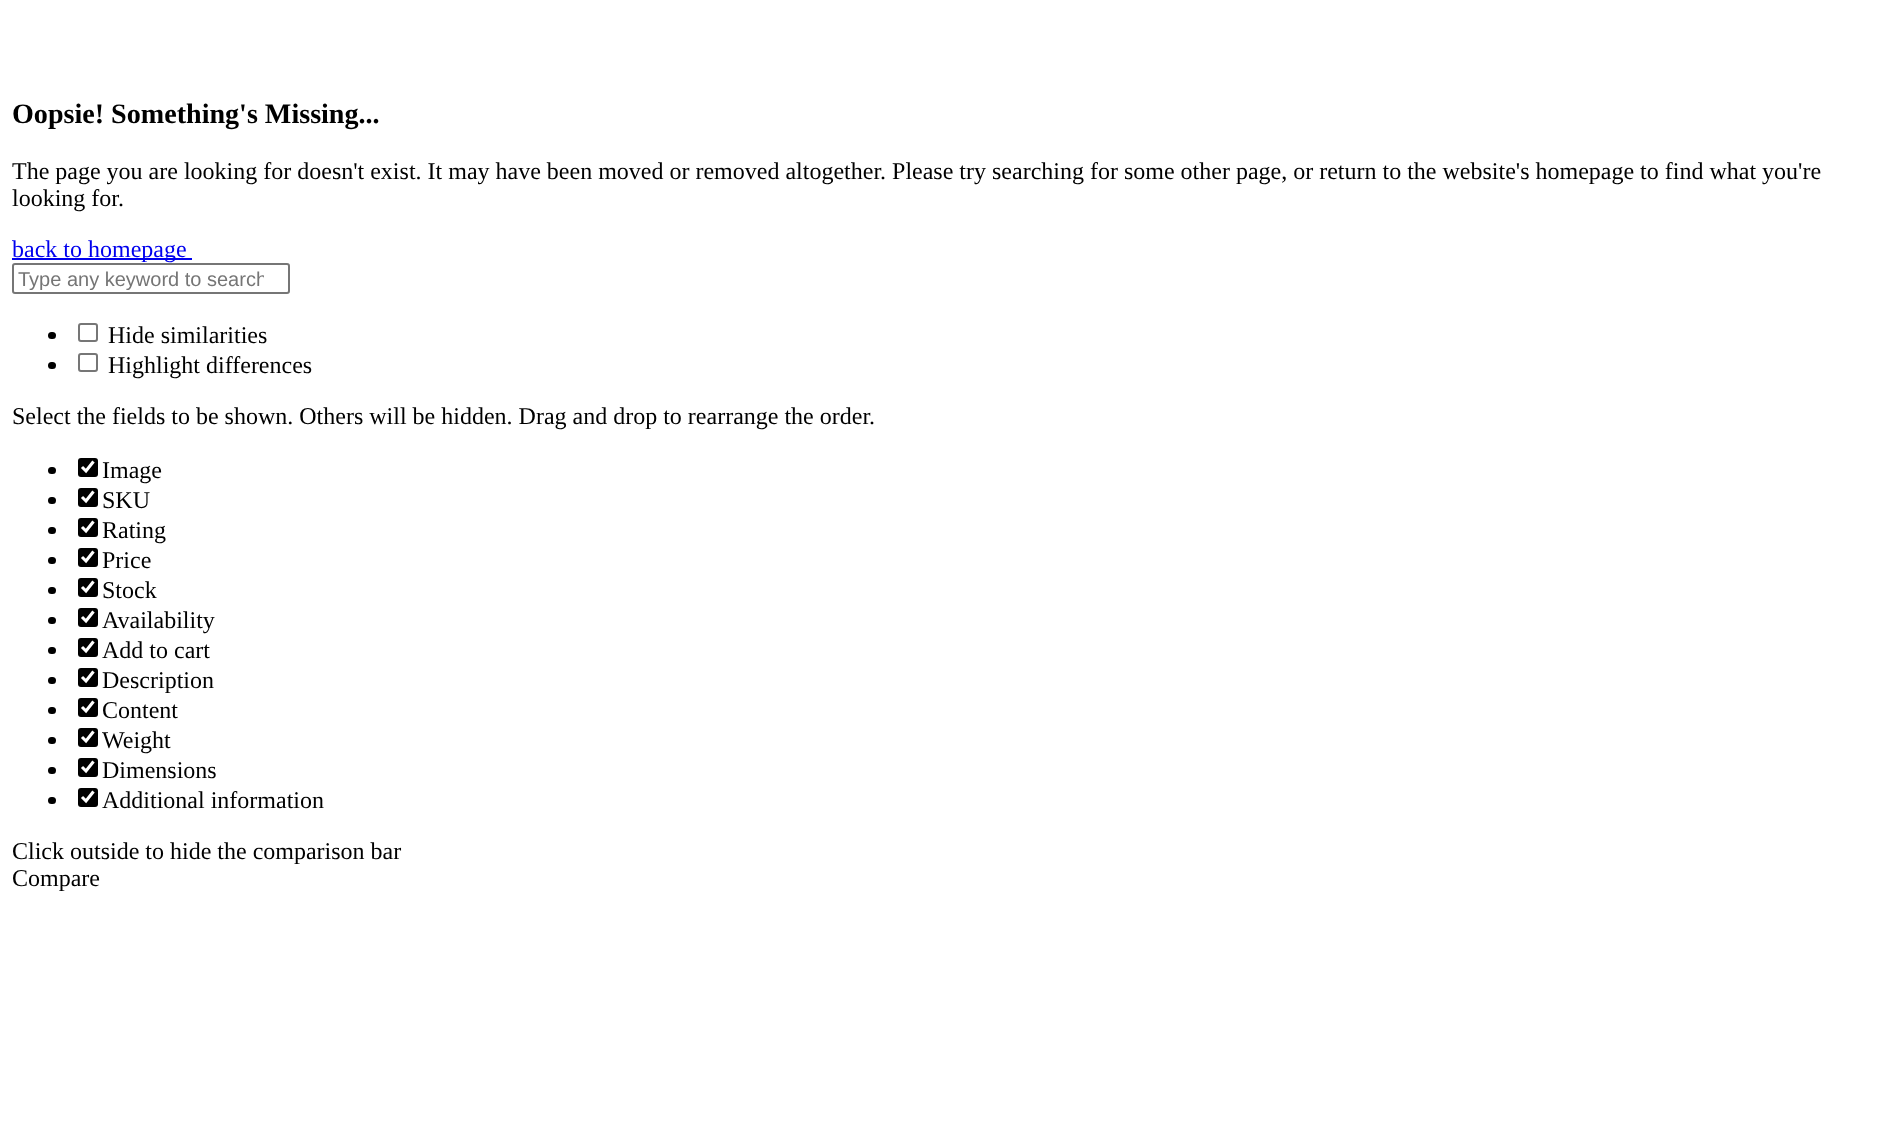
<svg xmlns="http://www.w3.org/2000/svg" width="1901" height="1131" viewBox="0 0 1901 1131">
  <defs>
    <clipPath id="clip1"><rect x="18" y="267" width="246" height="23"/></clipPath>
  </defs>
  <rect width="100%" height="100%" fill="rgb(255,255,255)"/>
  <text x="12" y="123" font-family="Liberation Serif" font-size="28.1" font-weight="bold" fill="rgb(0,0,0)">Oopsie! Something's Missing...</text>
  <g font-family="Liberation Serif" font-size="24" fill="rgb(0,0,0)">
    <text>
      <tspan x="12" y="179">The page you are looking for doesn't exist. It may have been moved or removed altogether. Please try searching for some other page, or return to the website's homepage to find what you're</tspan>
      <tspan x="12" y="206">looking for.</tspan>
    </text>
  </g>
  <rect x="12" y="258" width="180" height="2" fill="rgb(0,0,238)"/>
  <text x="12" y="257" font-family="Liberation Serif" font-size="24" fill="rgb(0,0,238)">back to homepage</text>
  <rect x="13" y="264" width="276" height="29" rx="2" fill="none" stroke="rgb(118,118,118)" stroke-width="2"/>
  <g clip-path="url(#clip1)">
    <text x="18" y="286" font-family="Liberation Sans" font-size="20" fill="rgb(117,117,117)">Type any keyword to search</text>
  </g>
  <rect x="48" y="332" width="8" height="7" rx="3.5" fill="rgb(0,0,0)"/>
  <rect x="79" y="324" width="18" height="17" rx="2" fill="none" stroke="rgb(118,118,118)" stroke-width="2"/>
  <text x="108" y="343" font-family="Liberation Serif" font-size="24" fill="rgb(0,0,0)">Hide similarities</text>
  <rect x="48" y="362" width="8" height="7" rx="3.5" fill="rgb(0,0,0)"/>
  <rect x="79" y="354" width="18" height="17" rx="2" fill="none" stroke="rgb(118,118,118)" stroke-width="2"/>
  <g font-family="Liberation Serif" font-size="24" fill="rgb(0,0,0)">
    <text x="108" y="373">Highlight differences</text>
    <text x="12" y="424">Select the fields to be shown. Others will be hidden. Drag and drop to rearrange the order.</text>
  </g>
  <rect x="48" y="467" width="8" height="7" rx="3.5" fill="rgb(0,0,0)"/>
  <rect x="78" y="458" width="20" height="19" rx="3" fill="rgb(0,0,0)"/>
  <path d="M82 467L86 471L93.5 461.5" fill="none" stroke="rgb(255,255,255)" stroke-width="3.1"/>
  <text x="102" y="478" font-family="Liberation Serif" font-size="24" fill="rgb(0,0,0)">Image</text>
  <rect x="48" y="497" width="8" height="7" rx="3.5" fill="rgb(0,0,0)"/>
  <rect x="78" y="488" width="20" height="19" rx="3" fill="rgb(0,0,0)"/>
  <path d="M82 497L86 501L93.5 491.5" fill="none" stroke="rgb(255,255,255)" stroke-width="3.1"/>
  <text x="102" y="508" font-family="Liberation Serif" font-size="24" fill="rgb(0,0,0)">SKU</text>
  <rect x="48" y="527" width="8" height="7" rx="3.5" fill="rgb(0,0,0)"/>
  <rect x="78" y="518" width="20" height="19" rx="3" fill="rgb(0,0,0)"/>
  <path d="M82 527L86 531L93.5 521.5" fill="none" stroke="rgb(255,255,255)" stroke-width="3.1"/>
  <text x="102" y="538" font-family="Liberation Serif" font-size="24" fill="rgb(0,0,0)">Rating</text>
  <rect x="48" y="557" width="8" height="7" rx="3.5" fill="rgb(0,0,0)"/>
  <rect x="78" y="548" width="20" height="19" rx="3" fill="rgb(0,0,0)"/>
  <path d="M82 557L86 561L93.5 551.5" fill="none" stroke="rgb(255,255,255)" stroke-width="3.1"/>
  <text x="102" y="568" font-family="Liberation Serif" font-size="24" fill="rgb(0,0,0)">Price</text>
  <rect x="48" y="587" width="8" height="7" rx="3.5" fill="rgb(0,0,0)"/>
  <rect x="78" y="578" width="20" height="19" rx="3" fill="rgb(0,0,0)"/>
  <path d="M82 587L86 591L93.5 581.5" fill="none" stroke="rgb(255,255,255)" stroke-width="3.1"/>
  <text x="102" y="598" font-family="Liberation Serif" font-size="24" fill="rgb(0,0,0)">Stock</text>
  <rect x="48" y="617" width="8" height="7" rx="3.5" fill="rgb(0,0,0)"/>
  <rect x="78" y="608" width="20" height="19" rx="3" fill="rgb(0,0,0)"/>
  <path d="M82 617L86 621L93.5 611.5" fill="none" stroke="rgb(255,255,255)" stroke-width="3.1"/>
  <text x="102" y="628" font-family="Liberation Serif" font-size="24" fill="rgb(0,0,0)">Availability</text>
  <rect x="48" y="647" width="8" height="7" rx="3.5" fill="rgb(0,0,0)"/>
  <rect x="78" y="638" width="20" height="19" rx="3" fill="rgb(0,0,0)"/>
  <path d="M82 647L86 651L93.5 641.5" fill="none" stroke="rgb(255,255,255)" stroke-width="3.1"/>
  <text x="102" y="658" font-family="Liberation Serif" font-size="24" fill="rgb(0,0,0)">Add to cart</text>
  <rect x="48" y="677" width="8" height="7" rx="3.5" fill="rgb(0,0,0)"/>
  <rect x="78" y="668" width="20" height="19" rx="3" fill="rgb(0,0,0)"/>
  <path d="M82 677L86 681L93.5 671.5" fill="none" stroke="rgb(255,255,255)" stroke-width="3.1"/>
  <text x="102" y="688" font-family="Liberation Serif" font-size="24" fill="rgb(0,0,0)">Description</text>
  <rect x="48" y="707" width="8" height="7" rx="3.5" fill="rgb(0,0,0)"/>
  <rect x="78" y="698" width="20" height="19" rx="3" fill="rgb(0,0,0)"/>
  <path d="M82 707L86 711L93.5 701.5" fill="none" stroke="rgb(255,255,255)" stroke-width="3.1"/>
  <text x="102" y="718" font-family="Liberation Serif" font-size="24" fill="rgb(0,0,0)">Content</text>
  <rect x="48" y="737" width="8" height="7" rx="3.5" fill="rgb(0,0,0)"/>
  <rect x="78" y="728" width="20" height="19" rx="3" fill="rgb(0,0,0)"/>
  <path d="M82 737L86 741L93.5 731.5" fill="none" stroke="rgb(255,255,255)" stroke-width="3.1"/>
  <text x="102" y="748" font-family="Liberation Serif" font-size="24" fill="rgb(0,0,0)">Weight</text>
  <rect x="48" y="767" width="8" height="7" rx="3.5" fill="rgb(0,0,0)"/>
  <rect x="78" y="758" width="20" height="19" rx="3" fill="rgb(0,0,0)"/>
  <path d="M82 767L86 771L93.5 761.5" fill="none" stroke="rgb(255,255,255)" stroke-width="3.1"/>
  <text x="102" y="778" font-family="Liberation Serif" font-size="24" fill="rgb(0,0,0)">Dimensions</text>
  <rect x="48" y="797" width="8" height="7" rx="3.5" fill="rgb(0,0,0)"/>
  <rect x="78" y="788" width="20" height="19" rx="3" fill="rgb(0,0,0)"/>
  <path d="M82 797L86 801L93.5 791.5" fill="none" stroke="rgb(255,255,255)" stroke-width="3.1"/>
  <g font-family="Liberation Serif" font-size="24" fill="rgb(0,0,0)">
    <text x="102" y="808">Additional information</text>
    <text>
      <tspan x="12" y="859">Click outside to hide the comparison bar</tspan>
      <tspan x="12" y="886">Compare</tspan>
    </text>
  </g>
</svg>
